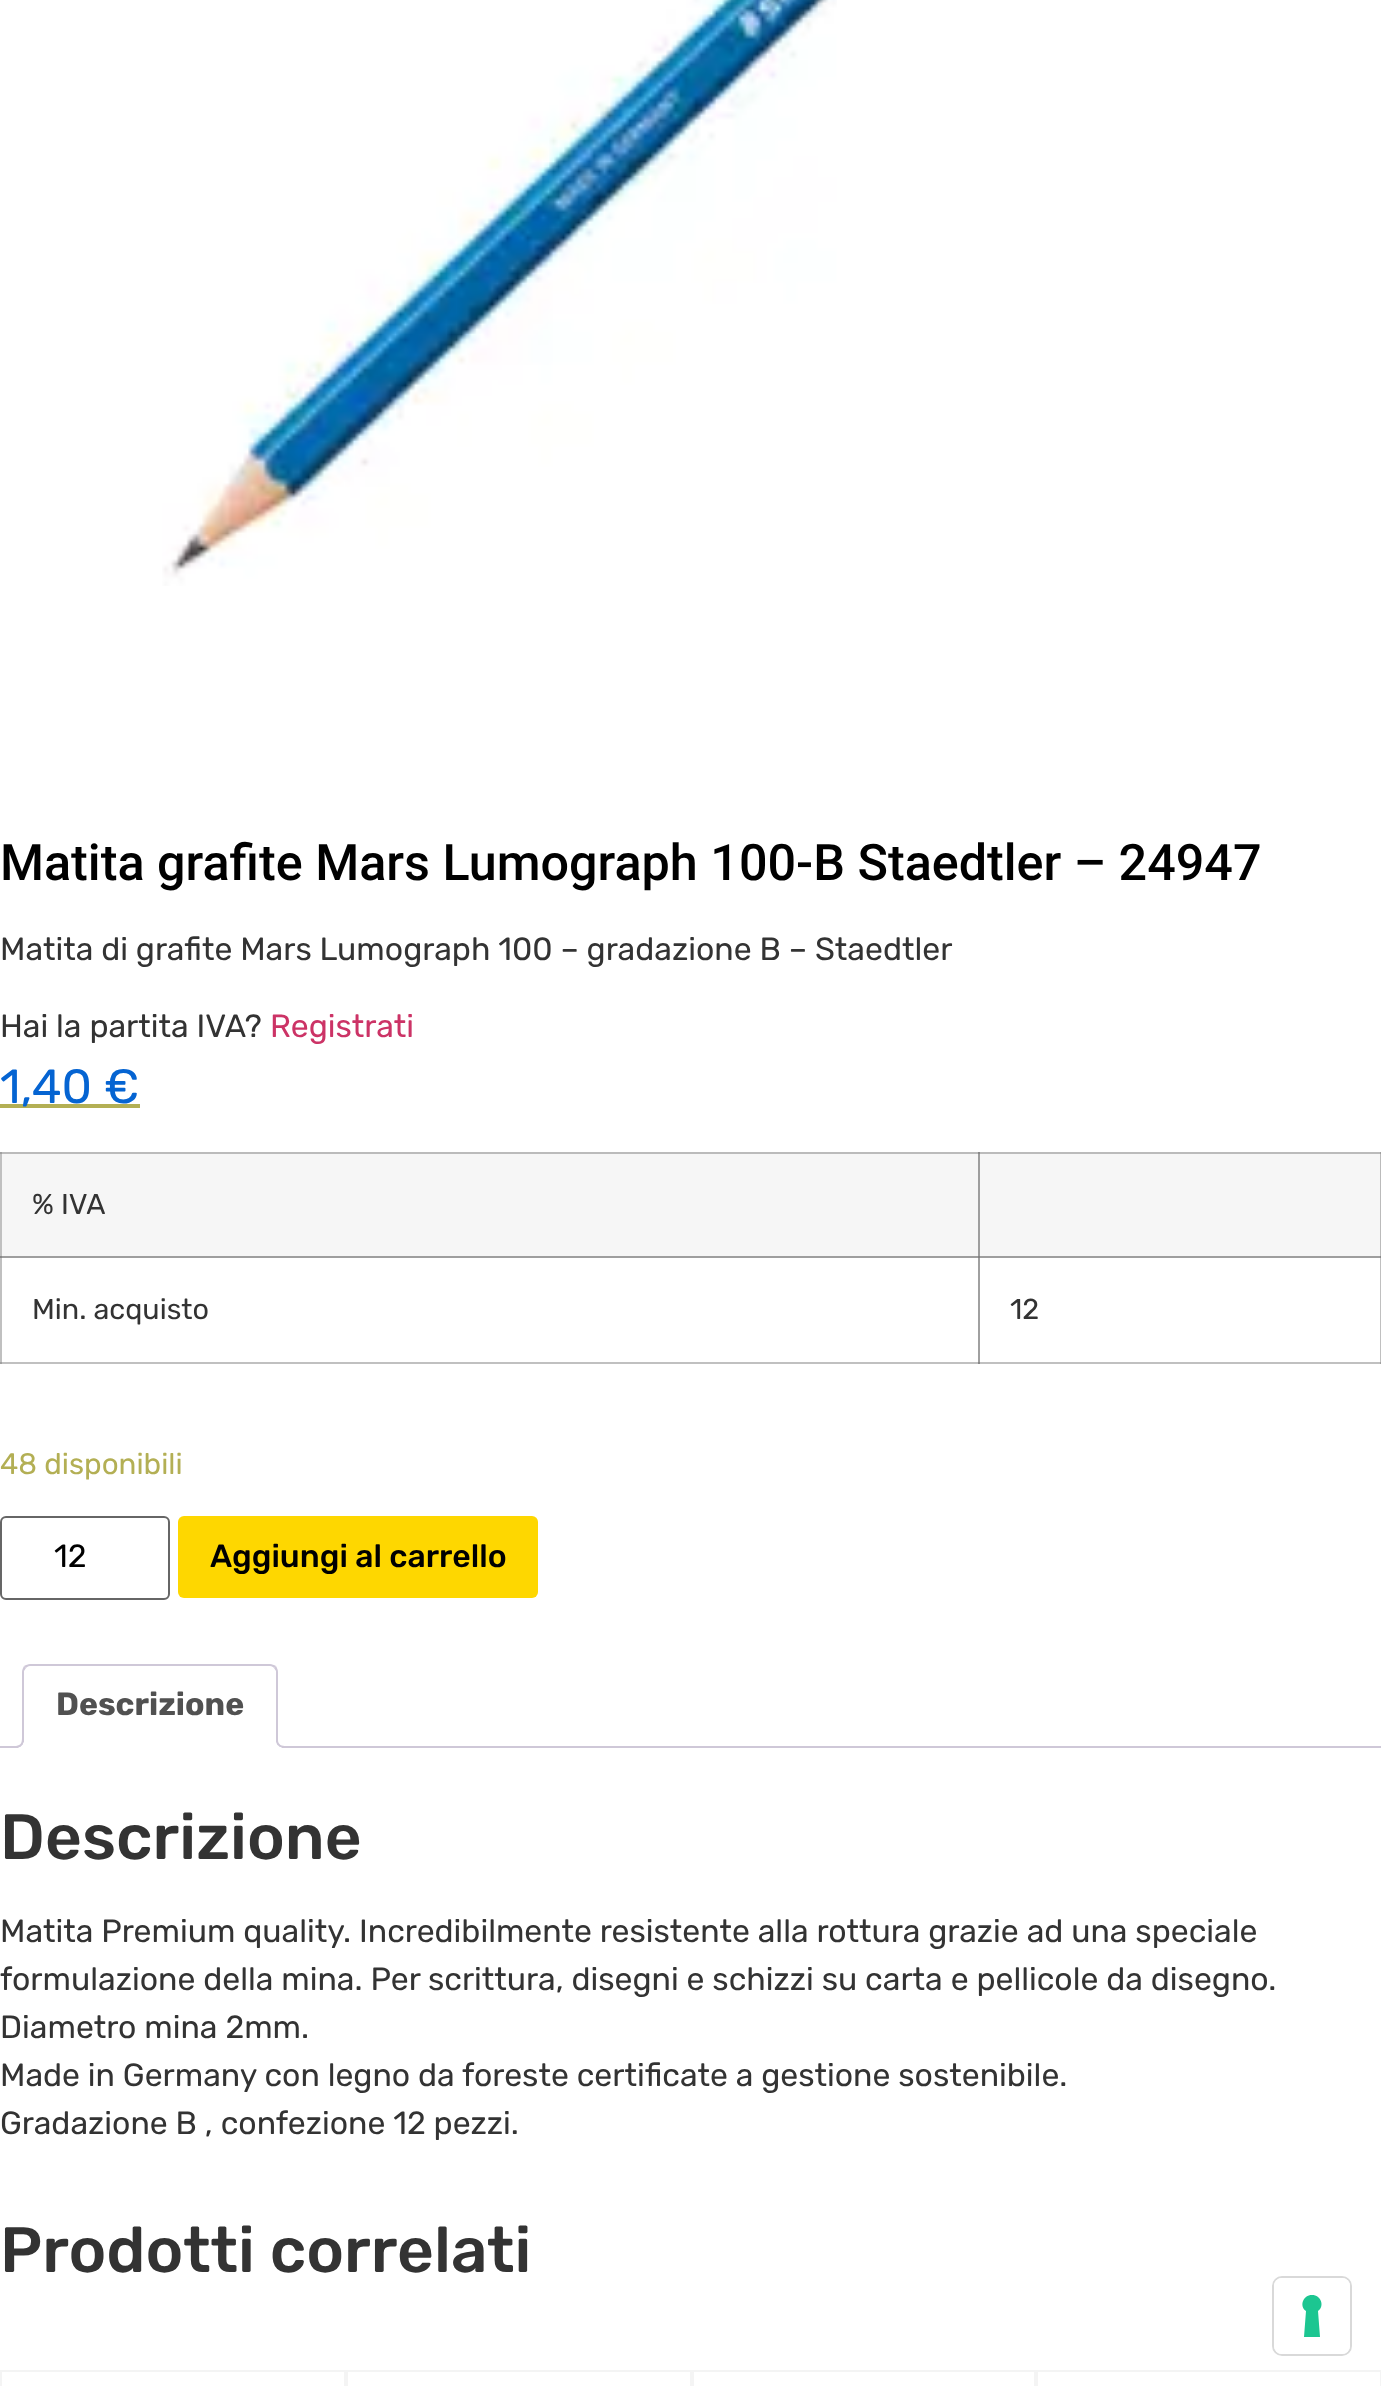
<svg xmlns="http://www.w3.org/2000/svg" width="1381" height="2386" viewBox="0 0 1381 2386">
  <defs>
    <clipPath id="clip1"><rect x="0" y="1664" width="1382" height="84"/></clipPath>
  </defs>
  <rect width="100%" height="100%" fill="rgb(255,255,255)"/>
  <rect x="0" y="1152" width="2" height="212" fill="rgb(192,192,192)"/>
  <rect x="0" y="1152" width="2" height="2" fill="rgb(160,160,160)"/>
  <rect x="0" y="1362" width="980" height="2" fill="rgb(192,192,192)"/>
  <rect x="0" y="1362" width="2" height="2" fill="rgb(160,160,160)"/>
  <rect x="0" y="1256" width="2" height="2" fill="rgb(136,136,136)"/>
  <rect x="978" y="1256" width="2" height="108" fill="rgb(160,160,160)"/>
  <rect x="978" y="1362" width="403" height="2" fill="rgb(192,192,192)"/>
  <rect x="978" y="1362" width="2" height="2" fill="rgb(136,136,136)"/>
  <rect x="1380" y="1256" width="1" height="108" fill="rgb(192,192,192)"/>
  <rect x="1380" y="1362" width="1" height="2" fill="rgb(160,160,160)"/>
  <image x="162" y="0" width="675" height="586" href="pic1.png"/>
  <text x="0" y="880" font-family="Roboto" font-size="50.3" font-weight="500" fill="rgb(0,0,0)">Matita grafite Mars Lumograph 100-B Staedtler – 24947</text>
  <g font-family="Rubik" font-size="32" font-weight="300" fill="rgb(51,51,51)">
    <text x="0" y="960">Matita di grafite Mars Lumograph 100 – gradazione B – Staedtler</text>
    <text x="0" y="1037">Hai la partita IVA?</text>
  </g>
  <text x="270" y="1037" font-family="Rubik" font-size="32" font-weight="300" fill="rgb(204,51,102)">Registrati</text>
  <rect x="0" y="1104" width="140" height="4" fill="rgb(179,175,84)"/>
  <text x="0" y="1103" font-family="Rubik" font-size="48" font-weight="300" fill="rgb(5,100,210)">1,40 €</text>
  <rect x="2" y="1154" width="976" height="102" fill="rgb(246,246,246)"/>
  <rect x="2" y="1152" width="978" height="2" fill="rgb(187,187,187)"/>
  <rect x="978" y="1152" width="2" height="106" fill="rgb(158,158,158)"/>
  <rect x="2" y="1256" width="978" height="2" fill="rgb(158,158,158)"/>
  <text x="32" y="1214" font-family="Rubik" font-size="28.75" font-weight="300" fill="rgb(51,51,51)">% IVA</text>
  <rect x="980" y="1154" width="400" height="102" fill="rgb(246,246,246)"/>
  <rect x="1380" y="1152" width="1" height="106" fill="rgb(187,187,187)"/>
  <rect x="978" y="1152" width="403" height="2" fill="rgb(187,187,187)"/>
  <rect x="978" y="1152" width="2" height="2" fill="rgb(136,136,136)"/>
  <rect x="1380" y="1152" width="1" height="2" fill="rgb(158,158,158)"/>
  <text x="32" y="1319" font-family="Rubik" font-size="28.75" font-weight="300" fill="rgb(51,51,51)">Min. acquisto</text>
  <rect x="978" y="1256" width="403" height="2" fill="rgb(158,158,158)"/>
  <rect x="978" y="1256" width="2" height="2" fill="rgb(129,129,129)"/>
  <rect x="1380" y="1256" width="1" height="2" fill="rgb(136,136,136)"/>
  <text x="1010" y="1319" font-family="Rubik" font-size="28.75" font-weight="300" fill="rgb(51,51,51)">12</text>
  <text x="0" y="1474" font-family="Rubik" font-size="29.5" font-weight="300" fill="rgb(179,175,84)">48 disponibili</text>
  <rect x="1" y="1517" width="168" height="82" rx="5" fill="none" stroke="rgb(102,102,102)" stroke-width="2"/>
  <text x="54" y="1567" font-family="Rubik" font-size="32" font-weight="300" fill="rgb(0,0,0)">12</text>
  <rect x="178" y="1516" width="360" height="82" rx="6" fill="rgb(254,215,0)"/>
  <text x="210" y="1567" font-family="'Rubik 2'" font-size="32" font-weight="300" fill="rgb(0,0,0)">Aggiungi al carrello</text>
  <rect x="0" y="1746" width="1381" height="2" fill="rgb(207,200,216)"/>
  <path d="M30 1664H270C274.5 1664 278 1667.5 278 1672V1748H22V1672C22 1667.5 25.5 1664 30 1664Z" fill="rgb(255,255,255)"/>
  <path d="M30 1664C28 1664 26 1665 24 1666L26 1668C27 1667 28 1666 30 1666H270C272 1666 273 1667 274 1668L276 1666C274 1665 272 1664 270 1664Z" fill="rgb(207,200,216)"/>
  <path d="M278 1748V1672C278 1670 277 1668 276 1666L274 1668L276 1671V1746Z" fill="rgb(207,200,216)"/>
  <path d="M278 1748L276 1746H24L22 1748Z" fill="rgb(255,255,255)"/>
  <path d="M22 1748L24 1746V1671L26 1668L24 1666C23 1668 22 1670 22 1672Z" fill="rgb(207,200,216)"/>
  <text x="56" y="1715" font-family="'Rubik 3'" font-size="32" font-weight="300" fill="rgb(81,81,81)">Descrizione</text>
  <g clip-path="url(#clip1)">
    <path d="M18 1747.5V1752C25 1752 28 1749 28 1742H23.5C23 1745 21 1747 18 1747.5Z" fill="rgb(255,255,255)"/>
  </g>
  <path d="M14 1738H24C24 1745 21 1748 14 1748ZM14 1738H22C22 1744 20 1746 14 1746Z" fill="rgb(207,200,216)" fill-rule="evenodd"/>
  <g clip-path="url(#clip1)">
    <path d="M272 1742C272 1749 275 1752 282 1752V1747.5C279 1747 277 1745 276.5 1742Z" fill="rgb(255,255,255)"/>
  </g>
  <path d="M276 1738H286V1748C281 1748 276 1746 276 1740ZM278 1738H286V1746C282 1746 278 1745 278 1740Z" fill="rgb(207,200,216)" fill-rule="evenodd"/>
  <text x="0" y="1859" font-family="'Rubik 2'" font-size="64" font-weight="300" fill="rgb(51,51,51)">Descrizione</text>
  <g font-family="Rubik" font-size="32" font-weight="300" fill="rgb(51,51,51)">
    <text>
      <tspan x="0" y="1942">Matita Premium quality. Incredibilmente resistente alla rottura grazie ad una speciale</tspan>
      <tspan x="0" y="1990">formulazione della mina. Per scrittura, disegni e schizzi su carta e pellicole da disegno.</tspan>
      <tspan x="0" y="2038">Diametro mina 2mm.</tspan>
      <tspan x="0" y="2086">Made in Germany con legno da foreste certificate a gestione sostenibile.</tspan>
      <tspan x="0" y="2134">Gradazione B , confezione 12 pezzi.</tspan>
    </text>
  </g>
  <text x="0" y="2272" font-family="'Rubik 2'" font-size="64" font-weight="300" fill="rgb(51,51,51)">Prodotti correlati</text>
  <rect x="1" y="2371" width="344" height="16" fill="none" stroke="rgb(244,244,244)" stroke-width="2"/>
  <rect x="347" y="2371" width="344" height="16" fill="none" stroke="rgb(244,244,244)" stroke-width="2"/>
  <rect x="693" y="2371" width="342" height="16" fill="none" stroke="rgb(244,244,244)" stroke-width="2"/>
  <rect x="1037" y="2371" width="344" height="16" fill="none" stroke="rgb(244,244,244)" stroke-width="2"/>
  <rect x="1273" y="2277" width="78" height="78" rx="9" fill="none" stroke="rgb(217,217,217)" stroke-width="2"/>
  <rect x="1274" y="2278" width="76" height="76" rx="8" fill="rgb(255,255,255)"/>
  <path d="M1312 2295C1321 2295 1325 2306 1318 2311L1320 2337H1304L1306 2311C1299 2306 1303 2295 1312 2295Z" fill="rgb(28,198,145)" fill-rule="evenodd"/>
</svg>
